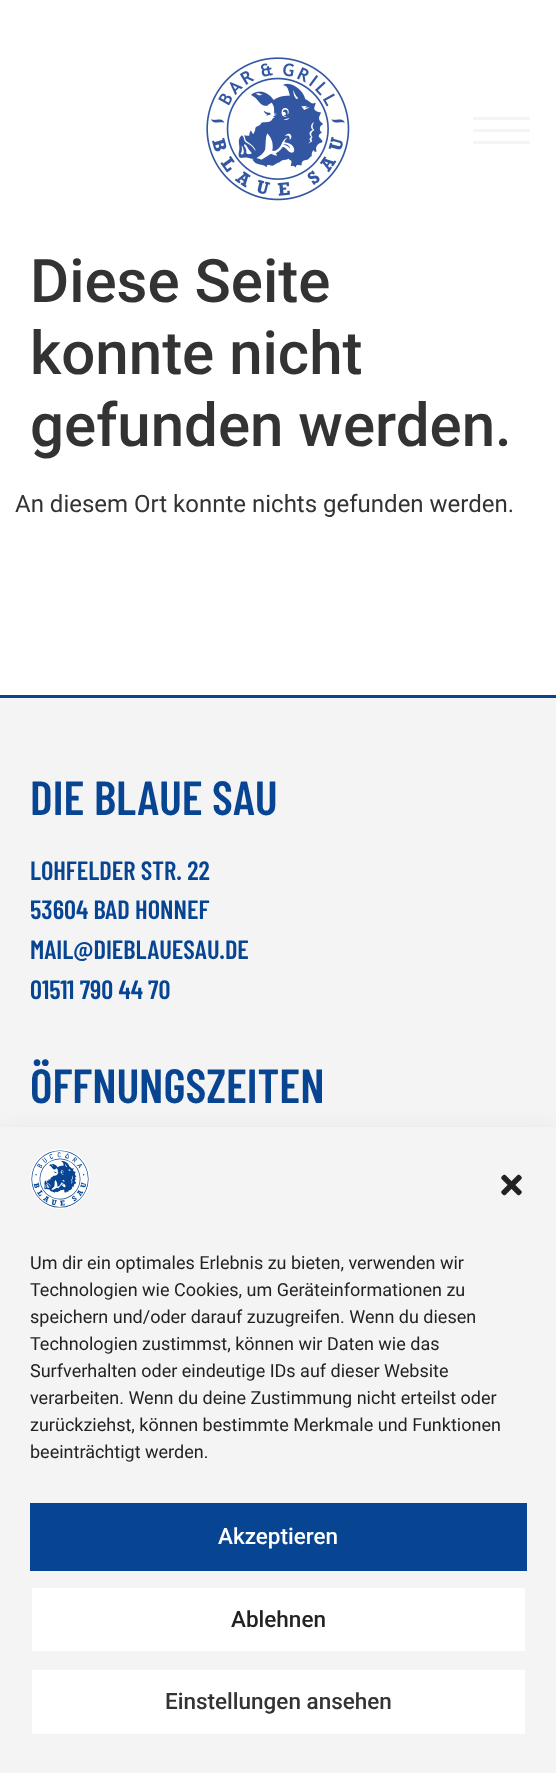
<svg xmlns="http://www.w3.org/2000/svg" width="556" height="1773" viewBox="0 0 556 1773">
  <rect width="100%" height="100%" fill="rgb(255,255,255)"/>
  <image x="206" y="57" width="144" height="144" href="pic1.png"/>
  <rect x="473" y="129" width="57" height="3" rx="1.5" fill="rgb(244,244,244)"/>
  <rect x="473" y="117" width="57" height="3" rx="1.5" fill="rgb(244,244,244)"/>
  <rect x="473" y="141" width="57" height="3" rx="1.5" fill="rgb(244,244,244)"/>
  <g font-family="Roboto" font-size="60" font-weight="500" fill="rgb(51,51,51)">
    <text>
      <tspan x="30" y="302">Diese Seite</tspan>
      <tspan x="30" y="374">konnte nicht</tspan>
      <tspan x="30" y="446">gefunden werden.</tspan>
    </text>
  </g>
  <text x="15" y="512" font-family="Roboto" font-size="24" fill="rgb(51,51,51)">An diesem Ort konnte nichts gefunden werden.</text>
  <rect x="0" y="698" width="556" height="429" fill="rgb(244,244,244)"/>
  <rect x="0" y="695" width="556" height="3" fill="rgb(7,69,147)"/>
  <text x="30" y="815" font-family="Barlow Condensed" font-size="48" font-weight="600" fill="rgb(7,69,147)">DIE BLAUE SAU</text>
  <g font-family="Barlow Condensed" font-size="26.5" font-weight="600" fill="rgb(7,69,147)">
    <text>
      <tspan x="30" y="880">LOHFELDER STR. 22</tspan>
      <tspan x="30" y="919">53604 BAD HONNEF</tspan>
      <tspan x="30" y="959">MAIL@DIEBLAUESAU.DE</tspan>
      <tspan x="30" y="999">01511 790 44 70</tspan>
    </text>
  </g>
  <text x="30" y="1103" font-family="Barlow Condensed" font-size="48" font-weight="600" fill="rgb(7,69,147)">ÖFFNUNGSZEITEN</text>
  <rect x="0" y="1142" width="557" height="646" fill="rgba(0,0,0,0.19)" filter="blur(15px)"/>
  <rect x="0" y="1127" width="556" height="646" fill="rgb(244,244,244)"/>
  <image x="30" y="1149" width="60" height="60" href="pic2.png"/>
  <image x="501" y="1174" width="21" height="22" href="pic3.png"/>
  <g font-family="Roboto" font-size="18" fill="rgb(34,34,34)">
    <text>
      <tspan x="30" y="1269">Um dir ein optimales Erlebnis zu bieten, verwenden wir</tspan>
      <tspan x="30" y="1296">Technologien wie Cookies, um Geräteinformationen zu</tspan>
      <tspan x="30" y="1323">speichern und/oder darauf zuzugreifen. Wenn du diesen</tspan>
      <tspan x="30" y="1350">Technologien zustimmst, können wir Daten wie das</tspan>
      <tspan x="30" y="1377">Surfverhalten oder eindeutige IDs auf dieser Website</tspan>
      <tspan x="30" y="1404">verarbeiten. Wenn du deine Zustimmung nicht erteilst oder</tspan>
      <tspan x="30" y="1431">zurückziehst, können bestimmte Merkmale und Funktionen</tspan>
      <tspan x="30" y="1458">beeinträchtigt werden.</tspan>
    </text>
  </g>
  <rect x="30" y="1503" width="497" height="68" fill="rgb(7,69,147)"/>
  <text x="218" y="1544" font-family="Roboto" font-size="22.5" font-weight="500" fill="rgb(255,255,255)">Akzeptieren</text>
  <rect x="32" y="1588" width="493" height="63" fill="rgb(255,255,255)"/>
  <text x="231" y="1627" font-family="Roboto" font-size="22.5" font-weight="500" fill="rgb(34,34,34)">Ablehnen</text>
  <rect x="32" y="1670" width="493" height="64" fill="rgb(255,255,255)"/>
  <text x="165" y="1709" font-family="Roboto" font-size="22.5" font-weight="500" fill="rgb(51,51,51)">Einstellungen ansehen</text>
</svg>
